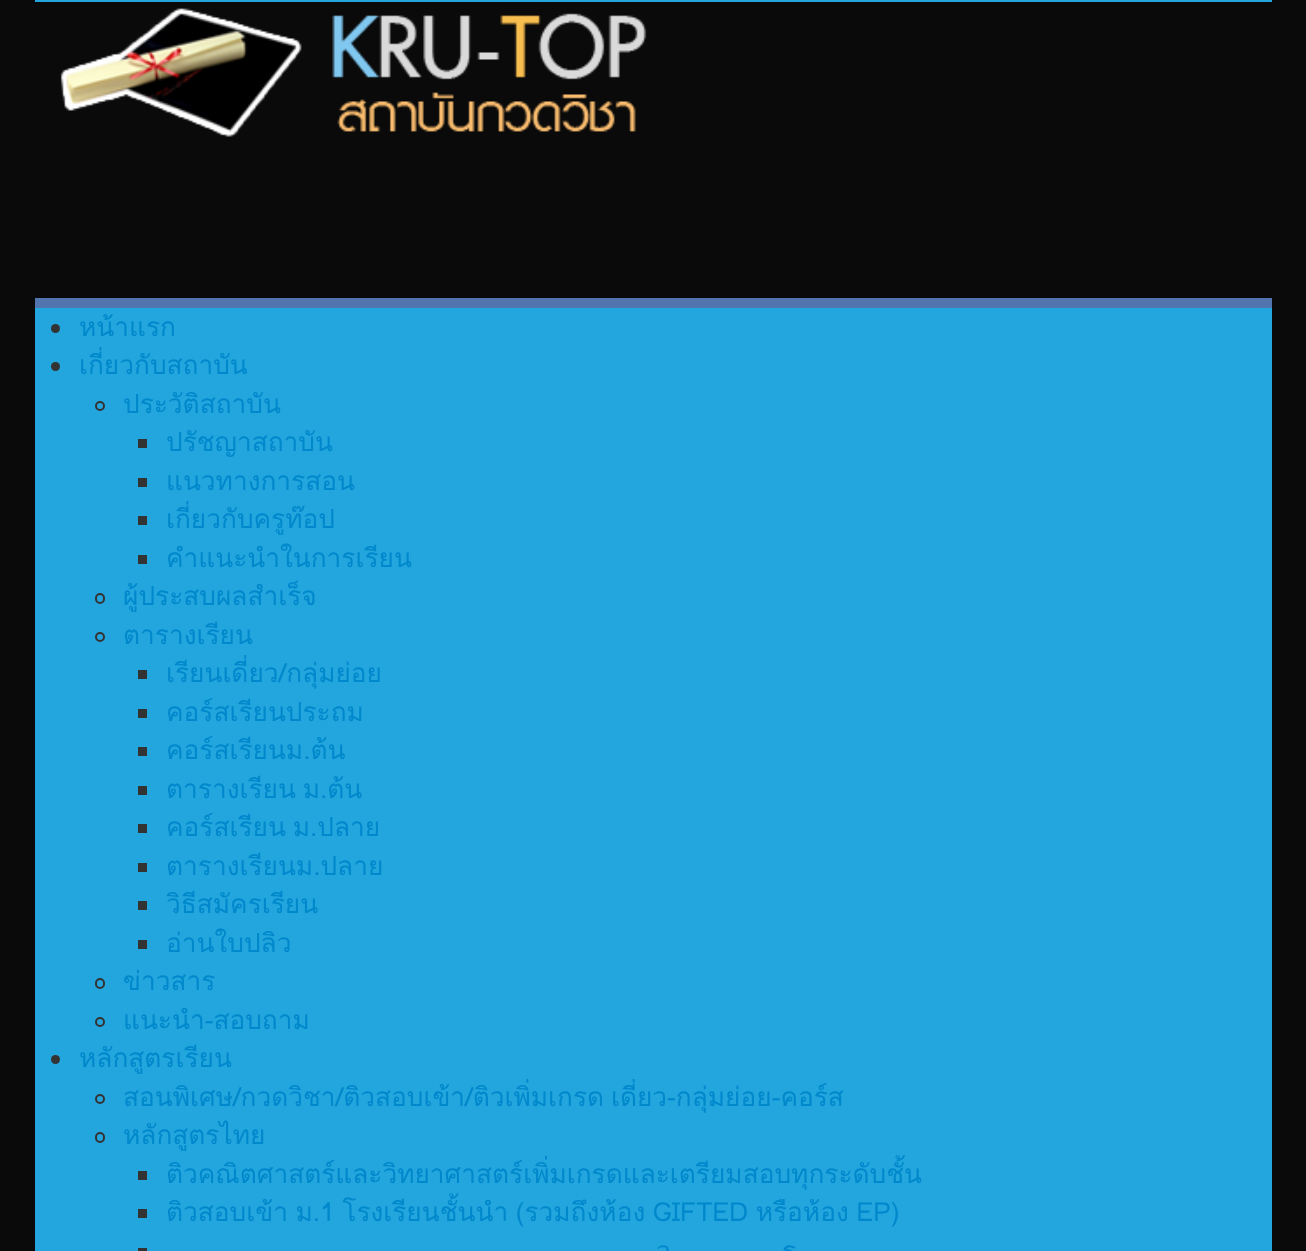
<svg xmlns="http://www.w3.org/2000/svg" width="1306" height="1251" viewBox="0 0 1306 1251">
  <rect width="100%" height="100%" fill="rgb(10,10,10)"/>
  <rect x="35" y="0" width="1237" height="2" fill="rgb(35,165,221)"/>
  <image x="60" y="8" width="587" height="129" href="pic1.png"/>
  <rect x="35" y="308" width="1237" height="943" fill="rgb(35,165,221)"/>
  <rect x="35" y="298" width="1237" height="10" fill="rgb(82,116,175)"/>
  <circle cx="55.5" cy="328.5" r="4.5" fill="rgb(51,51,51)"/>
  <text x="79" y="336" font-family="Loma" font-size="26.25" fill="rgb(0,136,204)">หน้าแรก</text>
  <circle cx="55.5" cy="366.5" r="4.5" fill="rgb(51,51,51)"/>
  <text x="79" y="374" font-family="Loma" font-size="26.25" fill="rgb(0,136,204)">เกี่ยวกับสถาบัน</text>
  <circle cx="100" cy="406" r="4" fill="none" stroke="rgb(51,51,51)" stroke-width="2"/>
  <text x="123" y="413" font-family="Loma" font-size="26.25" fill="rgb(0,136,204)">ประวัติสถาบัน</text>
  <rect x="138" y="439" width="9" height="9" fill="rgb(51,51,51)"/>
  <text x="166" y="451" font-family="Loma" font-size="26.25" fill="rgb(0,136,204)">ปรัชญาสถาบัน</text>
  <rect x="138" y="478" width="9" height="9" fill="rgb(51,51,51)"/>
  <text x="166" y="490" font-family="Loma" font-size="26.25" fill="rgb(0,136,204)">แนวทางการสอน</text>
  <rect x="138" y="516" width="9" height="9" fill="rgb(51,51,51)"/>
  <text x="166" y="528" font-family="Loma" font-size="26.25" fill="rgb(0,136,204)">เกี่ยวกับครูท๊อป</text>
  <rect x="138" y="555" width="9" height="9" fill="rgb(51,51,51)"/>
  <text x="166" y="567" font-family="Loma" font-size="26.25" fill="rgb(0,136,204)">คำแนะนำในการเรียน</text>
  <rect x="96" y="594" width="8" height="9" rx="4" fill="none" stroke="rgb(51,51,51)" stroke-width="2"/>
  <text x="123" y="605" font-family="Loma" font-size="26.25" fill="rgb(0,136,204)">ผู้ประสบผลสำเร็จ</text>
  <circle cx="100" cy="637" r="4" fill="none" stroke="rgb(51,51,51)" stroke-width="2"/>
  <text x="123" y="644" font-family="Loma" font-size="26.25" fill="rgb(0,136,204)">ตารางเรียน</text>
  <rect x="138" y="670" width="9" height="9" fill="rgb(51,51,51)"/>
  <text x="166" y="682" font-family="Loma" font-size="26.25" fill="rgb(0,136,204)">เรียนเดี่ยว/กลุ่มย่อย</text>
  <rect x="138" y="709" width="9" height="9" fill="rgb(51,51,51)"/>
  <text x="166" y="721" font-family="Loma" font-size="26.25" fill="rgb(0,136,204)">คอร์สเรียนประถม</text>
  <rect x="138" y="747" width="9" height="9" fill="rgb(51,51,51)"/>
  <text x="166" y="759" font-family="Loma" font-size="26.25" fill="rgb(0,136,204)">คอร์สเรียนม.ต้น</text>
  <rect x="138" y="786" width="9" height="9" fill="rgb(51,51,51)"/>
  <text x="166" y="798" word-spacing="-2" font-family="Loma" font-size="26.25" fill="rgb(0,136,204)">ตารางเรียน ม.ต้น</text>
  <rect x="138" y="824" width="9" height="9" fill="rgb(51,51,51)"/>
  <text x="166" y="836" word-spacing="-2" font-family="Loma" font-size="26.25" fill="rgb(0,136,204)">คอร์สเรียน ม.ปลาย</text>
  <rect x="138" y="863" width="9" height="9" fill="rgb(51,51,51)"/>
  <text x="166" y="875" font-family="Loma" font-size="26.25" fill="rgb(0,136,204)">ตารางเรียนม.ปลาย</text>
  <rect x="138" y="901" width="9" height="9" fill="rgb(51,51,51)"/>
  <text x="166" y="913" font-family="Loma" font-size="26.25" fill="rgb(0,136,204)">วิธีสมัครเรียน</text>
  <rect x="138" y="940" width="9" height="9" fill="rgb(51,51,51)"/>
  <text x="166" y="952" font-family="Loma" font-size="26.25" fill="rgb(0,136,204)">อ่านใบปลิว</text>
  <rect x="96" y="979" width="8" height="9" rx="4" fill="none" stroke="rgb(51,51,51)" stroke-width="2"/>
  <text x="123" y="990" font-family="Loma" font-size="26.25" fill="rgb(0,136,204)">ข่าวสาร</text>
  <circle cx="100" cy="1022" r="4" fill="none" stroke="rgb(51,51,51)" stroke-width="2"/>
  <text x="123" y="1029" font-family="Loma" font-size="26.25" fill="rgb(0,136,204)">แนะนำ-สอบถาม</text>
  <circle cx="55.5" cy="1059.5" r="4.5" fill="rgb(51,51,51)"/>
  <text x="79" y="1067" font-family="Loma" font-size="26.25" fill="rgb(0,136,204)">หลักสูตรเรียน</text>
  <circle cx="100" cy="1099" r="4" fill="none" stroke="rgb(51,51,51)" stroke-width="2"/>
  <text x="123" y="1106" word-spacing="-2" font-family="Loma" font-size="26.25" fill="rgb(0,136,204)">สอนพิเศษ/กวดวิชา/ติวสอบเข้า/ติวเพิ่มเกรด เดี่ยว-กลุ่มย่อย-คอร์ส</text>
  <rect x="96" y="1133" width="8" height="9" rx="4" fill="none" stroke="rgb(51,51,51)" stroke-width="2"/>
  <text x="123" y="1144" font-family="Loma" font-size="26.25" fill="rgb(0,136,204)">หลักสูตรไทย</text>
  <rect x="138" y="1171" width="9" height="9" fill="rgb(51,51,51)"/>
  <text x="166" y="1183" font-family="Loma" font-size="26.25" fill="rgb(0,136,204)">ติวคณิตศาสตร์และวิทยาศาสตร์เพิ่มเกรดและเตรียมสอบทุกระดับชั้น</text>
  <rect x="138" y="1209" width="9" height="9" fill="rgb(51,51,51)"/>
  <text x="166" y="1221" word-spacing="-1.25" font-family="Loma" font-size="26.25" fill="rgb(0,136,204)">ติวสอบเข้า ม.1 โรงเรียนชั้นนำ (รวมถึงห้อง GIFTED หรือห้อง EP)</text>
  <rect x="138" y="1248" width="9" height="3" fill="rgb(51,51,51)"/>
  <g font-family="Loma" font-size="26.25" fill="rgb(0,136,204)">
    <text x="656" y="1260" word-spacing="-2">ว</text>
    <text x="782" y="1260" word-spacing="-2">ร</text>
  </g>
</svg>
